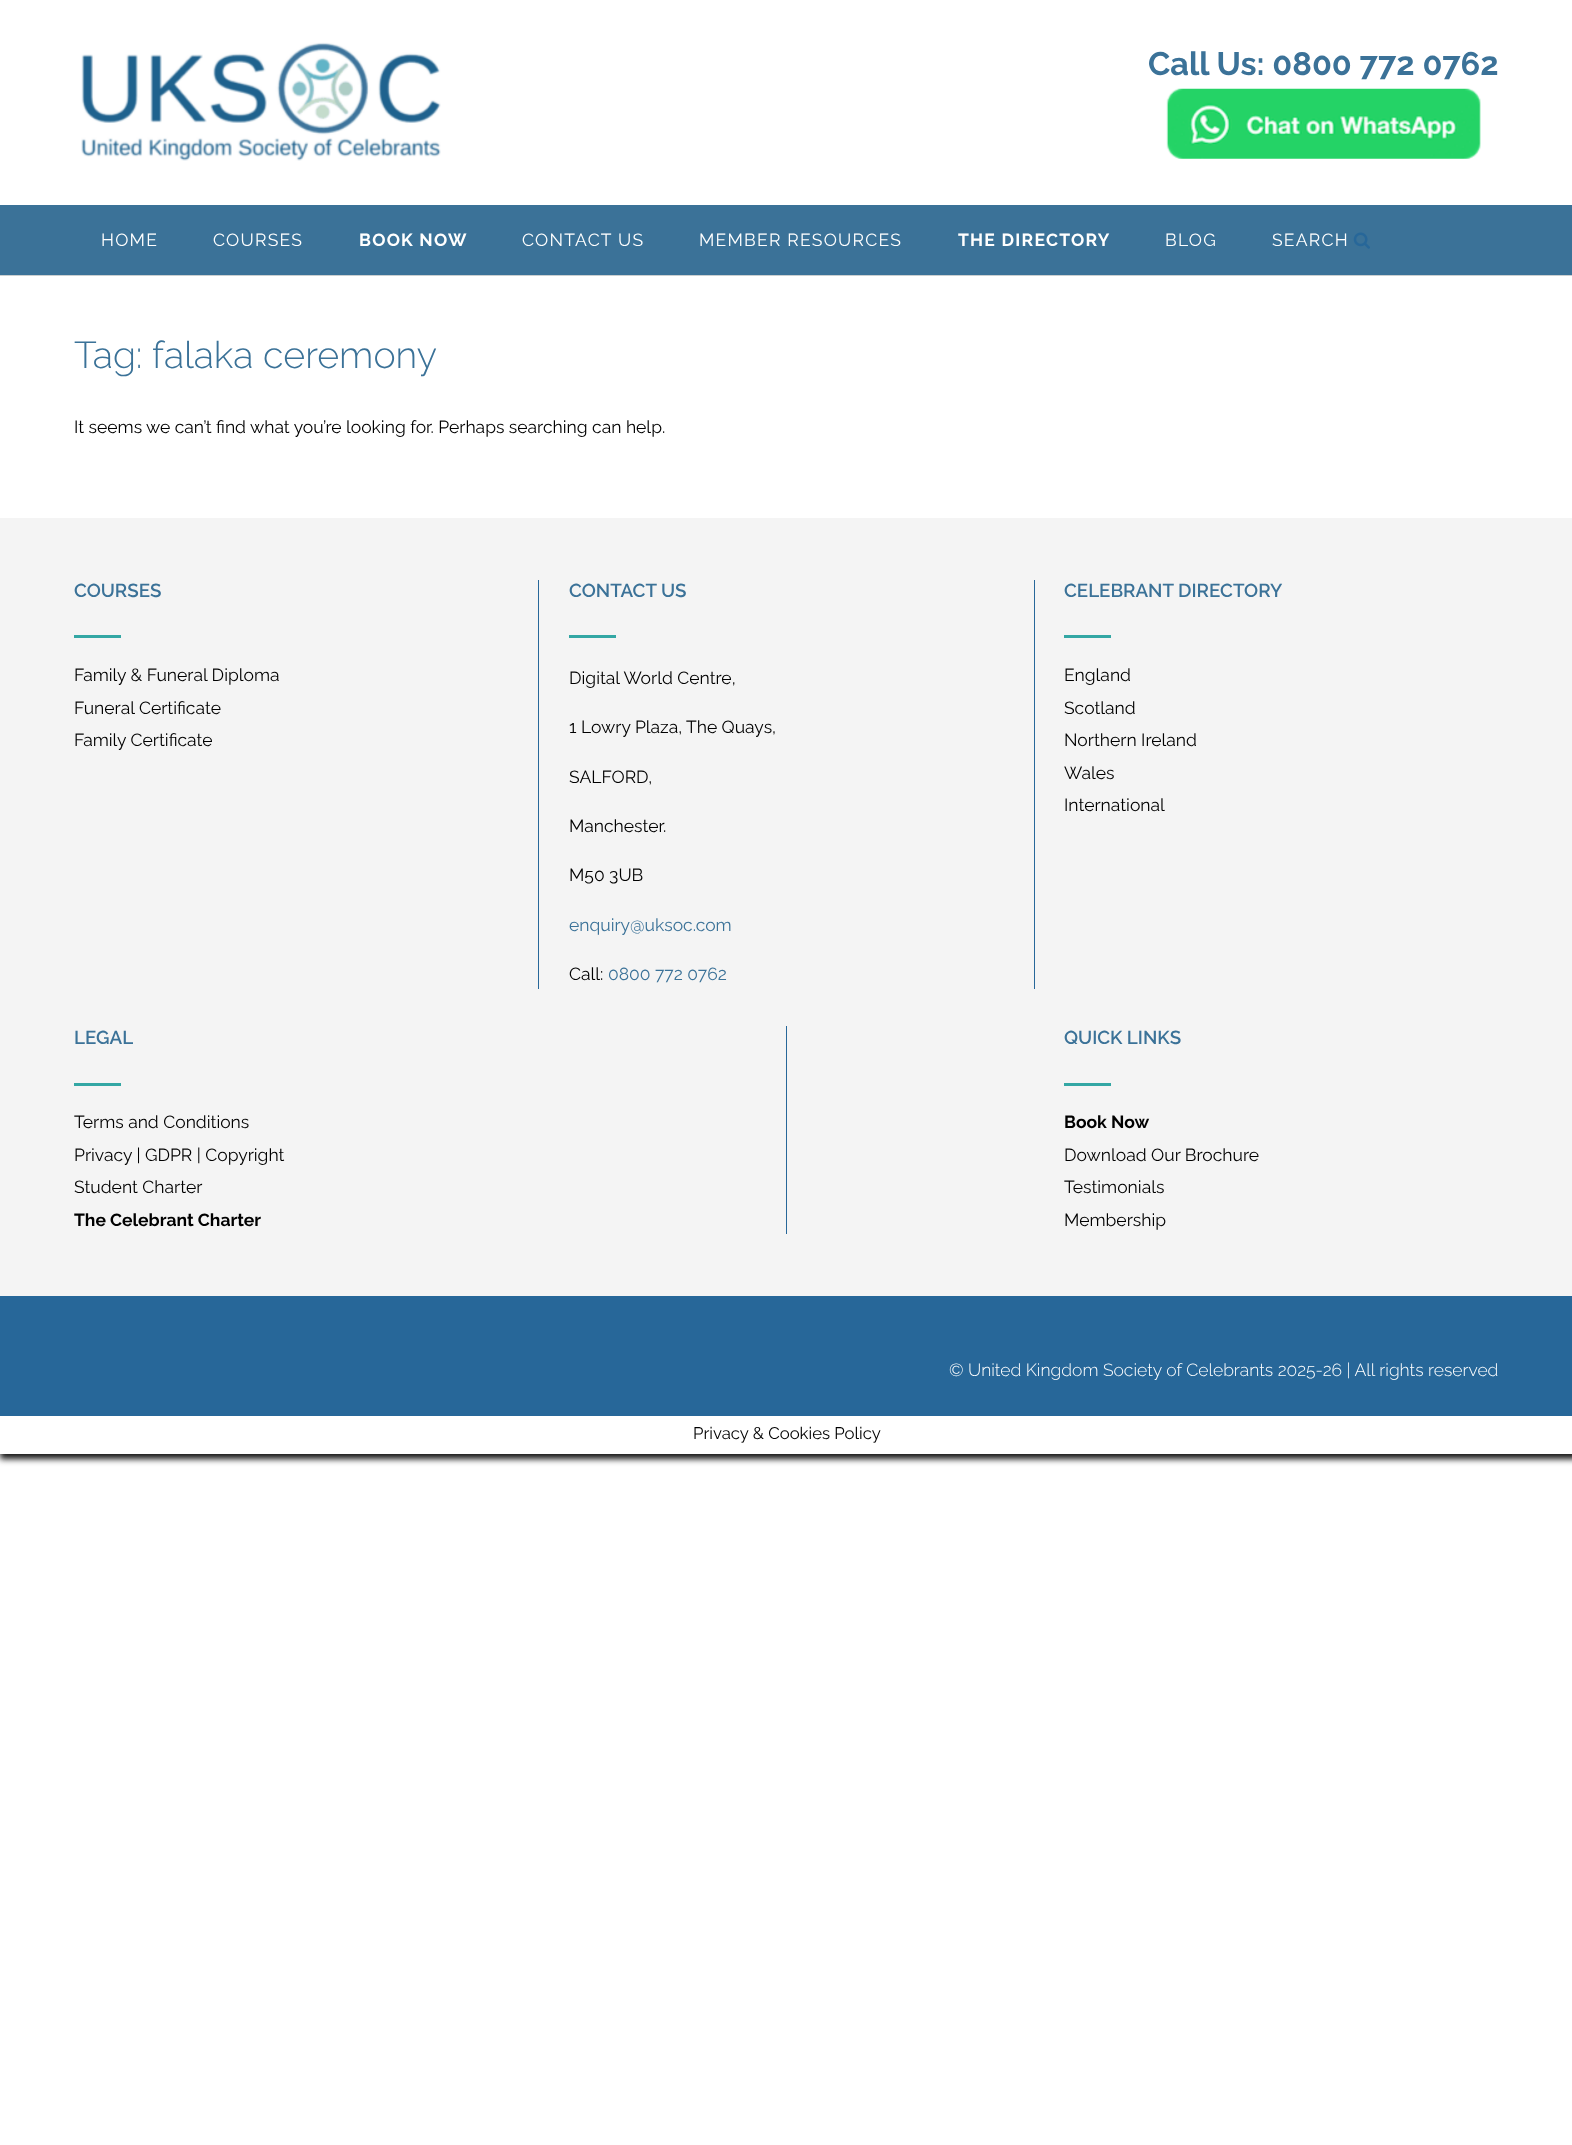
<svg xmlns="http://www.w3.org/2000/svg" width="1572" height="2145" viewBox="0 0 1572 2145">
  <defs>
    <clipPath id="clip1"><path d="M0 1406H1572V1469H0ZM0 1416H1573V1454H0Z" clip-rule="evenodd"/></clipPath>
  </defs>
  <rect width="100%" height="100%" fill="rgb(255,255,255)"/>
  <image x="81" y="42" width="360" height="119" href="pic1.png"/>
  <text x="1148" y="75" font-family="Raleway" font-size="32.5" font-weight="bold" fill="rgb(59,114,152)">Call Us: 0800 772 0762</text>
  <image x="1166" y="88" width="315" height="71" href="pic2.png"/>
  <rect x="0" y="205" width="1572" height="70" fill="rgb(59,114,152)"/>
  <rect x="0" y="275" width="1572" height="1" fill="rgb(202,207,208)"/>
  <g font-family="Raleway" font-size="17.5" letter-spacing="1.25" fill="rgb(255,255,255)">
    <text x="101" y="246">HOME</text>
    <text x="213" y="246">COURSES</text>
  </g>
  <text x="359" y="246" font-family="Raleway" font-size="17.5" font-weight="bold" letter-spacing="1.25" fill="rgb(255,255,255)">BOOK NOW</text>
  <g font-family="Raleway" font-size="17.5" letter-spacing="1.25" fill="rgb(255,255,255)">
    <text x="522" y="246">CONTACT US</text>
    <text x="699" y="246">MEMBER RESOURCES</text>
  </g>
  <text x="958" y="246" font-family="Raleway" font-size="17.5" font-weight="bold" letter-spacing="1.25" fill="rgb(255,255,255)">THE DIRECTORY</text>
  <g font-family="Raleway" font-size="17.5" letter-spacing="1.25" fill="rgb(255,255,255)">
    <text x="1165" y="246">BLOG</text>
    <text x="1272" y="246">SEARCH</text>
  </g>
  <image x="1353" y="232" width="17" height="17" href="pic3.png"/>
  <text x="74" y="368" font-family="Raleway" font-size="37.5" font-weight="300" fill="rgb(59,114,152)">Tag: falaka ceremony</text>
  <text x="74" y="433" font-family="Raleway" font-size="17.5" fill="rgb(0,0,0)">It seems we can’t find what you’re looking for. Perhaps searching can help.</text>
  <rect x="0" y="518" width="1572" height="778" fill="rgb(244,244,244)"/>
  <text x="74" y="597" font-family="Raleway" font-size="18.75" font-weight="600" fill="rgb(59,114,152)">COURSES</text>
  <rect x="74" y="635" width="47" height="3" fill="rgb(51,167,164)"/>
  <g font-family="Raleway" font-size="17.5" fill="rgb(0,0,0)">
    <text>
      <tspan x="74" y="681">Family &amp; Funeral Diploma</tspan>
      <tspan x="74" y="714">Funeral Certificate</tspan>
      <tspan x="74" y="746">Family Certificate</tspan>
    </text>
  </g>
  <rect x="538" y="580" width="1" height="409" fill="rgb(39,103,153)"/>
  <text x="569" y="597" font-family="Raleway" font-size="18.75" font-weight="600" fill="rgb(59,114,152)">CONTACT US</text>
  <rect x="569" y="635" width="47" height="3" fill="rgb(51,167,164)"/>
  <g font-family="Raleway" font-size="17.5" fill="rgb(0,0,0)">
    <text x="569" y="684">Digital World Centre,</text>
    <text x="569" y="733">1 Lowry Plaza,</text>
    <text x="686" y="733">The Quays,</text>
    <text x="569" y="783">SALFORD,</text>
    <text x="569" y="832">Manchester.</text>
    <text x="569" y="881">M50 3UB</text>
  </g>
  <text x="569" y="931" font-family="Raleway" font-size="17.5" fill="rgb(59,114,152)">enquiry@uksoc.com</text>
  <text x="569" y="980" font-family="Raleway" font-size="17.5" fill="rgb(0,0,0)">Call:</text>
  <text x="608" y="980" font-family="Raleway" font-size="17.5" fill="rgb(59,114,152)">0800 772 0762</text>
  <rect x="1034" y="580" width="1" height="409" fill="rgb(39,103,153)"/>
  <text x="1064" y="597" font-family="Raleway" font-size="18.75" font-weight="600" fill="rgb(59,114,152)">CELEBRANT DIRECTORY</text>
  <rect x="1064" y="635" width="47" height="3" fill="rgb(51,167,164)"/>
  <g font-family="Raleway" font-size="17.5" fill="rgb(0,0,0)">
    <text>
      <tspan x="1064" y="681">England</tspan>
      <tspan x="1064" y="714">Scotland</tspan>
      <tspan x="1064" y="746">Northern Ireland</tspan>
      <tspan x="1064" y="779">Wales</tspan>
      <tspan x="1064" y="811">International</tspan>
    </text>
  </g>
  <text x="74" y="1044" font-family="Raleway" font-size="18.75" font-weight="600" fill="rgb(59,114,152)">LEGAL</text>
  <rect x="74" y="1083" width="47" height="3" fill="rgb(51,167,164)"/>
  <g font-family="Raleway" font-size="17.5" fill="rgb(0,0,0)">
    <text>
      <tspan x="74" y="1128">Terms and Conditions</tspan>
      <tspan x="74" y="1161">Privacy | GDPR | Copyright</tspan>
      <tspan x="74" y="1193">Student Charter</tspan>
    </text>
  </g>
  <text x="74" y="1226" font-family="Raleway" font-size="17.5" font-weight="bold" fill="rgb(0,0,0)">The Celebrant Charter</text>
  <rect x="786" y="1026" width="1" height="208" fill="rgb(39,103,153)"/>
  <text x="1064" y="1044" font-family="Raleway" font-size="18.75" font-weight="600" fill="rgb(59,114,152)">QUICK LINKS</text>
  <rect x="1064" y="1083" width="47" height="3" fill="rgb(51,167,164)"/>
  <text x="1064" y="1128" font-family="Raleway" font-size="17.5" font-weight="bold" fill="rgb(0,0,0)">Book Now</text>
  <g font-family="Raleway" font-size="17.5" fill="rgb(0,0,0)">
    <text>
      <tspan x="1064" y="1161">Download Our Brochure</tspan>
      <tspan x="1064" y="1193">Testimonials</tspan>
      <tspan x="1064" y="1226">Membership</tspan>
    </text>
  </g>
  <g clip-path="url(#clip1)">
    <rect x="0" y="1416" width="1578" height="43" fill="rgb(22,22,22)" filter="blur(3px)"/>
  </g>
  <rect x="0" y="1296" width="1572" height="120" fill="rgb(39,103,153)"/>
  <text x="949" y="1376" font-family="Raleway" font-size="17.5" font-weight="300" fill="rgb(255,255,255)">© United Kingdom Society of Celebrants 2025-26 | All rights reserved</text>
  <text x="693" y="1439" font-family="Raleway" font-size="16.75" fill="rgb(0,0,0)">Privacy &amp; Cookies Policy</text>
</svg>
